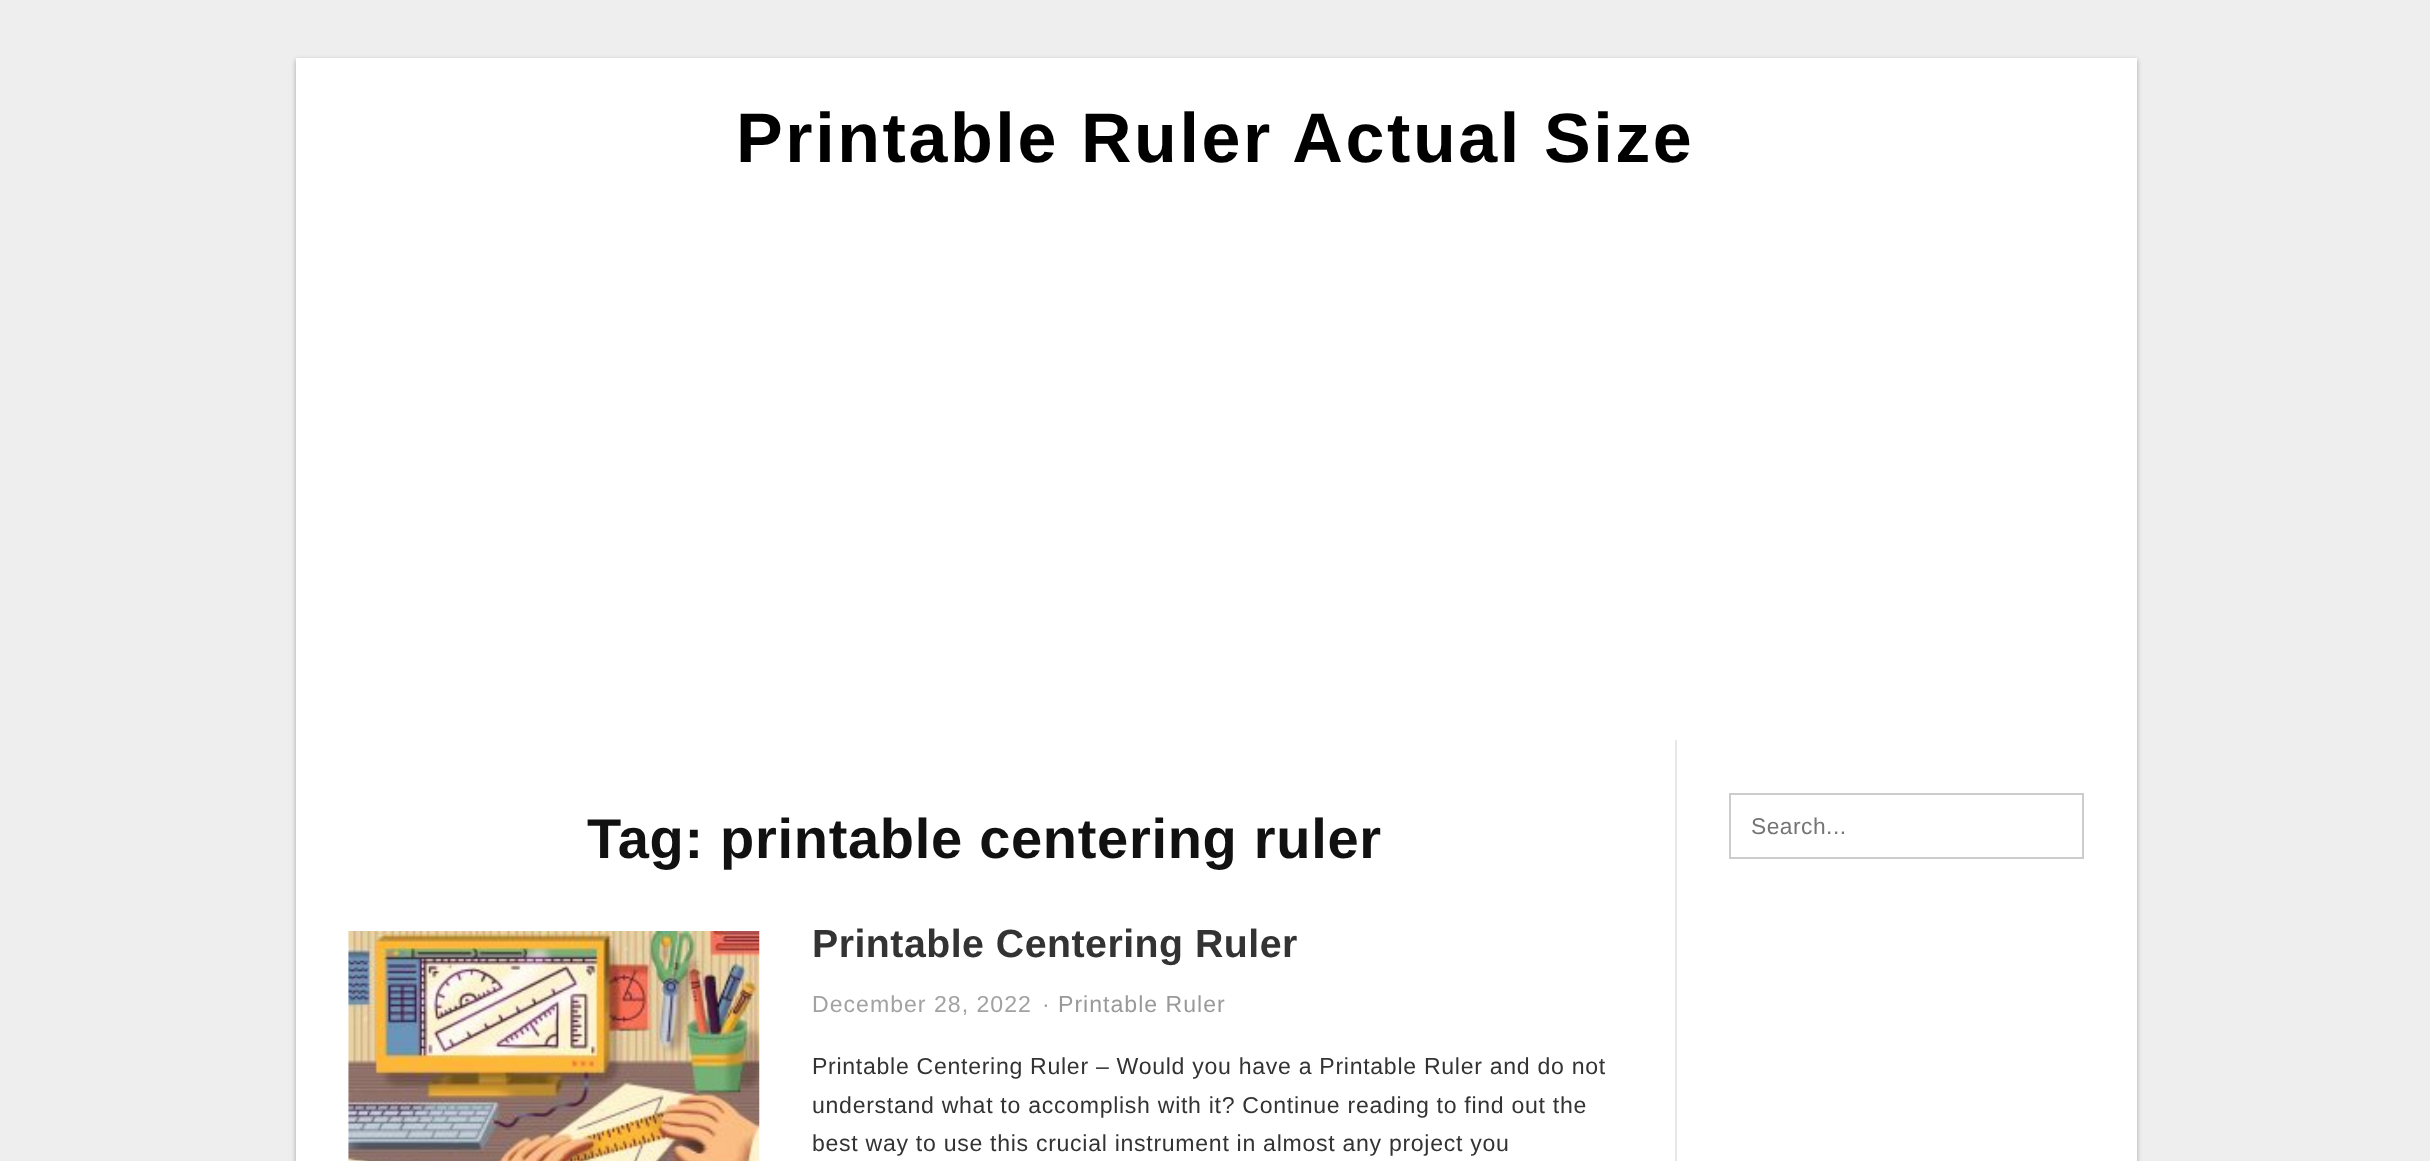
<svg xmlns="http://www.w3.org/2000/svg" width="2430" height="1161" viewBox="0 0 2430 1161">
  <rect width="100%" height="100%" fill="rgb(238,238,238)"/>
  <rect x="296" y="60" width="1841" height="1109" fill="rgba(0,0,0,0.3)" filter="blur(2.5px)"/>
  <rect x="296" y="58" width="1841" height="1103" fill="rgb(255,255,255)"/>
  <text x="736" y="162" font-family="Liberation Sans" font-size="70" font-weight="bold" letter-spacing="2.6" fill="rgb(0,0,0)">Printable Ruler Actual Size</text>
  <rect x="1675" y="740" width="2" height="421" fill="rgb(232,232,232)"/>
  <text x="587" y="858" font-family="Liberation Sans" font-size="56" font-weight="bold" letter-spacing="0.7" fill="rgb(17,17,17)">Tag: printable centering ruler</text>
  <image x="348" y="931" width="412" height="230" href="pic1.png"/>
  <text x="812" y="957" font-family="Liberation Sans" font-size="39.25" font-weight="bold" letter-spacing="0.5" fill="rgb(51,51,51)">Printable Centering Ruler</text>
  <g font-family="Liberation Sans" font-size="23.1" letter-spacing="1" fill="rgb(162,162,162)">
    <text x="812" y="1012">December 28, 2022</text>
    <text x="1042" y="1012">·</text>
  </g>
  <text x="1058" y="1012" font-family="Liberation Sans" font-size="23.1" letter-spacing="1" fill="rgb(153,153,153)">Printable Ruler</text>
  <g font-family="Liberation Sans" font-size="23.1" letter-spacing="0.7" fill="rgb(51,51,51)">
    <text>
      <tspan x="812" y="1074">Printable Centering Ruler – Would you have a Printable Ruler and do not</tspan>
      <tspan x="812" y="1113">understand what to accomplish with it? Continue reading to find out the</tspan>
      <tspan x="812" y="1151">best way to use this crucial instrument in almost any project you</tspan>
    </text>
  </g>
  <rect x="1730" y="794" width="353" height="64" fill="none" stroke="rgb(204,204,204)" stroke-width="2"/>
  <text x="1751" y="834" font-family="Liberation Sans" font-size="22.75" letter-spacing="0.5" fill="rgb(117,117,117)">Search...</text>
</svg>
